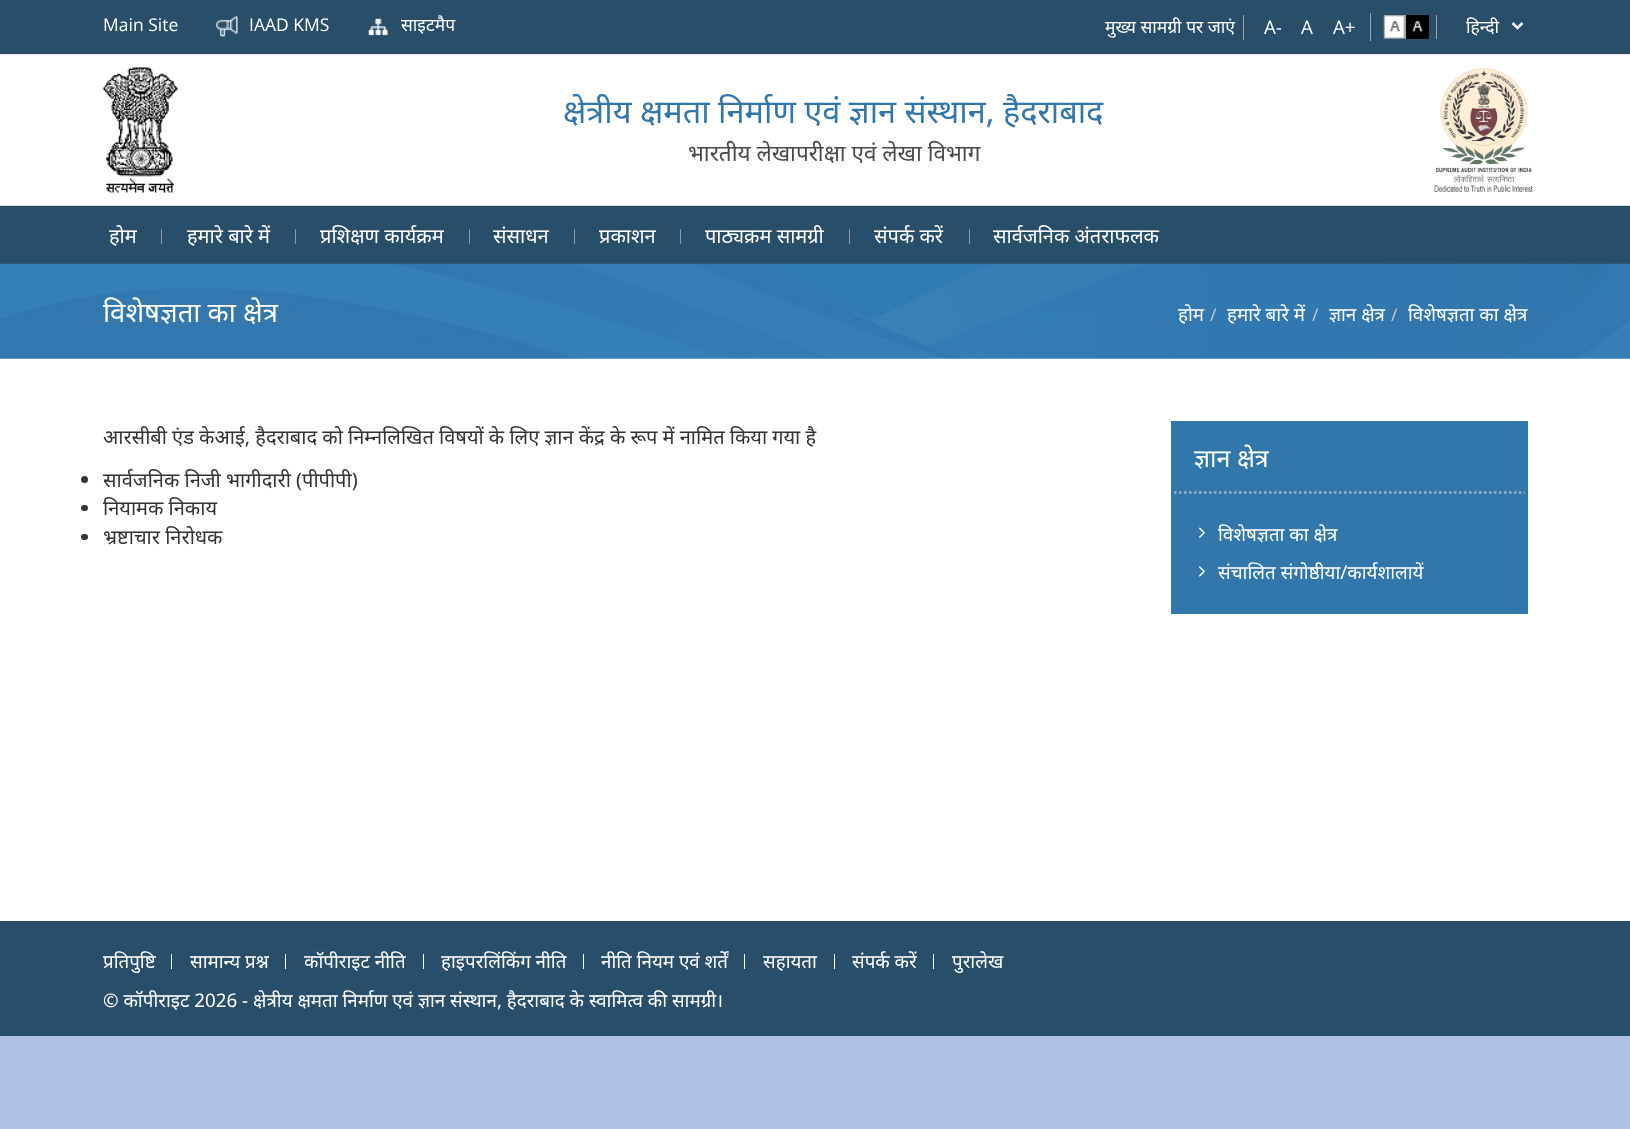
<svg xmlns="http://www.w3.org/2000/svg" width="1630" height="1129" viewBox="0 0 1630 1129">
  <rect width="100%" height="100%" fill="rgb(174,193,224)"/>
  <rect x="0" y="55" width="1630" height="866" fill="rgb(255,255,255)"/>
  <rect x="0" y="0" width="1630" height="54" fill="rgb(41,78,105)"/>
  <rect x="0" y="54" width="1630" height="1" fill="rgb(228,228,228)"/>
  <text x="103" y="31" font-family="Open Sans" font-size="17.5" fill="rgb(255,255,255)">Main Site</text>
  <image x="216" y="16" width="22" height="21" href="pic1.png"/>
  <text x="249" y="31" font-family="Open Sans" font-size="17.5" fill="rgb(255,255,255)">IAAD KMS</text>
  <image x="368" y="18" width="20" height="18" href="pic2.png"/>
  <text x="401" y="31" font-family="Noto Sans" font-size="17.5" fill="rgb(255,255,255)">साइटमैप</text>
  <rect x="1243" y="15" width="1" height="25" fill="rgb(161,161,161)"/>
  <text x="1105" y="33" font-family="Noto Sans" font-size="17.5" fill="rgb(255,255,255)">मुख्य सामग्री पर जाएं</text>
  <rect x="1370" y="13" width="1" height="28" fill="rgb(161,161,161)"/>
  <g font-family="Open Sans" font-size="18.75" fill="rgb(255,255,255)">
    <text x="1264" y="34">A-</text>
    <text x="1301" y="34">A</text>
    <text x="1333" y="34">A+</text>
  </g>
  <rect x="1436" y="15" width="1" height="24" fill="rgb(161,161,161)"/>
  <image x="1383" y="15" width="24" height="24" href="pic3.png"/>
  <rect x="1406" y="15" width="23" height="24" fill="rgba(3,3,3,0.64)"/>
  <image x="1406" y="15" width="23" height="24" href="pic4.png"/>
  <path d="M1512.5 23L1517.5 28L1522.5 23" fill="none" stroke="rgb(255,255,255)" stroke-width="2.5"/>
  <text x="1466" y="33" font-family="Noto Sans" font-size="17.5" fill="rgb(255,255,255)">हिन्दी</text>
  <rect x="0" y="205" width="1630" height="1" fill="rgb(221,221,221)"/>
  <image x="102" y="67" width="76" height="126" href="pic5.png"/>
  <text x="563" y="123" font-family="Noto Sans" font-size="32.5" fill="rgb(49,119,171)">क्षेत्रीय क्षमता निर्माण एवं ज्ञान संस्थान, हैदराबाद</text>
  <text x="688" y="161" font-family="Noto Sans" font-size="22.5" fill="rgb(73,73,73)">भारतीय लेखापरीक्षा एवं लेखा विभाग</text>
  <image x="1434" y="68" width="99" height="124" href="pic6.png"/>
  <rect x="0" y="206" width="1630" height="58" fill="rgb(41,78,105)"/>
  <text x="109" y="243" font-family="Noto Sans" font-size="20" fill="rgb(255,255,255)">होम</text>
  <rect x="161" y="229" width="1" height="15" fill="rgb(149,149,149)"/>
  <text x="187" y="243" font-family="Noto Sans" font-size="20" fill="rgb(255,255,255)">हमारे बारे में</text>
  <rect x="295" y="229" width="1" height="15" fill="rgb(149,149,149)"/>
  <text x="320" y="243" font-family="Noto Sans" font-size="20" fill="rgb(255,255,255)">प्रशिक्षण कार्यक्रम</text>
  <rect x="469" y="229" width="1" height="15" fill="rgb(149,149,149)"/>
  <text x="493" y="243" font-family="Noto Sans" font-size="20" fill="rgb(255,255,255)">संसाधन</text>
  <rect x="574" y="229" width="1" height="15" fill="rgb(149,149,149)"/>
  <text x="599" y="243" font-family="Noto Sans" font-size="20" fill="rgb(255,255,255)">प्रकाशन</text>
  <rect x="680" y="229" width="1" height="15" fill="rgb(149,149,149)"/>
  <text x="705" y="243" font-family="Noto Sans" font-size="20" fill="rgb(255,255,255)">पाठ्यक्रम सामग्री</text>
  <rect x="849" y="229" width="1" height="15" fill="rgb(149,149,149)"/>
  <text x="874" y="243" font-family="Noto Sans" font-size="20" fill="rgb(255,255,255)">संपर्क करें</text>
  <rect x="969" y="229" width="1" height="15" fill="rgb(149,149,149)"/>
  <text x="993" y="243" font-family="Noto Sans" font-size="20" fill="rgb(255,255,255)">सार्वजनिक अंतराफलक</text>
  <image x="0" y="263" width="1630" height="96" href="pic7.png"/>
  <text x="103" y="322" font-family="Noto Sans" font-size="27.5" fill="rgb(255,255,255)">विशेषज्ञता का क्षेत्र</text>
  <text x="1178" y="321" font-family="Noto Sans" font-size="18.75" fill="rgb(255,255,255)">होम</text>
  <text x="1210" y="321" font-family="Open Sans" font-size="17.5" fill="rgb(204,204,204)">/</text>
  <text x="1227" y="321" font-family="Noto Sans" font-size="18.75" fill="rgb(255,255,255)">हमारे बारे में</text>
  <text x="1312" y="321" font-family="Open Sans" font-size="17.5" fill="rgb(204,204,204)">/</text>
  <text x="1329" y="321" font-family="Noto Sans" font-size="18.75" fill="rgb(255,255,255)">ज्ञान क्षेत्र</text>
  <text x="1391" y="321" font-family="Open Sans" font-size="17.5" fill="rgb(204,204,204)">/</text>
  <text x="1408" y="321" font-family="Noto Sans" font-size="18.75" fill="rgb(255,255,255)">विशेषज्ञता का क्षेत्र</text>
  <text x="103" y="444" font-family="Noto Sans" font-size="20" fill="rgb(51,51,51)">आरसीबी एंड केआई, हैदराबाद को निम्नलिखित विषयों के लिए ज्ञान केंद्र के रूप में नामित किया गया है</text>
  <circle cx="84.5" cy="479.5" r="3.5" fill="rgb(51,51,51)"/>
  <text x="103" y="487" font-family="Noto Sans" font-size="20" fill="rgb(51,51,51)">सार्वजनिक निजी भागीदारी (पीपीपी)</text>
  <rect x="81" y="505" width="7" height="6" rx="3" fill="rgb(51,51,51)"/>
  <text x="103" y="515" font-family="Noto Sans" font-size="20" fill="rgb(51,51,51)">नियामक निकाय</text>
  <rect x="81" y="534" width="7" height="6" rx="3" fill="rgb(51,51,51)"/>
  <text x="103" y="544" font-family="Noto Sans" font-size="20" fill="rgb(51,51,51)">भ्रष्टाचार निरोधक</text>
  <rect x="1171" y="421" width="357" height="193" fill="rgb(49,119,171)"/>
  <path d="M1174 492.5H1525" fill="none" stroke="rgb(157,179,197)" stroke-width="2.5" stroke-dasharray="2.5 2.5"/>
  <text x="1194" y="467" font-family="Noto Sans" font-size="25" fill="rgb(255,255,255)">ज्ञान क्षेत्र</text>
  <image x="1198" y="527" width="7" height="11" href="pic8.png"/>
  <text x="1218" y="541" font-family="Noto Sans" font-size="18.75" fill="rgb(255,255,255)">विशेषज्ञता का क्षेत्र</text>
  <image x="1198" y="566" width="7" height="11" href="pic9.png"/>
  <text x="1218" y="579" font-family="Noto Sans" font-size="18.75" fill="rgb(255,255,255)">संचालित संगोष्ठीया/कार्यशालायें</text>
  <rect x="0" y="921" width="1630" height="115" fill="rgb(41,78,105)"/>
  <text x="103" y="968" font-family="Noto Sans" font-size="18.75" fill="rgb(255,255,255)">प्रतिपुष्टि</text>
  <rect x="171" y="954" width="1" height="15" fill="rgb(255,255,255)"/>
  <text x="190" y="968" font-family="Noto Sans" font-size="18.75" fill="rgb(255,255,255)">सामान्य प्रश्न</text>
  <rect x="285" y="954" width="1" height="15" fill="rgb(255,255,255)"/>
  <text x="304" y="968" font-family="Noto Sans" font-size="18.75" fill="rgb(255,255,255)">कॉपीराइट नीति</text>
  <rect x="423" y="954" width="1" height="15" fill="rgb(255,255,255)"/>
  <text x="441" y="968" font-family="Noto Sans" font-size="18.75" fill="rgb(255,255,255)">हाइपरलिंकिंग नीति</text>
  <rect x="583" y="954" width="1" height="15" fill="rgb(255,255,255)"/>
  <text x="601" y="968" font-family="Noto Sans" font-size="18.75" fill="rgb(255,255,255)">नीति नियम एवं शर्तें</text>
  <rect x="744" y="954" width="1" height="15" fill="rgb(255,255,255)"/>
  <text x="763" y="968" font-family="Noto Sans" font-size="18.75" fill="rgb(255,255,255)">सहायता</text>
  <rect x="834" y="954" width="1" height="15" fill="rgb(255,255,255)"/>
  <text x="852" y="968" font-family="Noto Sans" font-size="18.75" fill="rgb(255,255,255)">संपर्क करें</text>
  <rect x="933" y="954" width="1" height="15" fill="rgb(255,255,255)"/>
  <g font-family="Noto Sans" font-size="18.75" fill="rgb(255,255,255)">
    <text x="952" y="968">पुरालेख</text>
    <text x="103" y="1007">© कॉपीराइट 2026 - क्षेत्रीय क्षमता निर्माण एवं ज्ञान संस्थान, हैदराबाद के स्वामित्व की सामग्री।</text>
  </g>
</svg>
